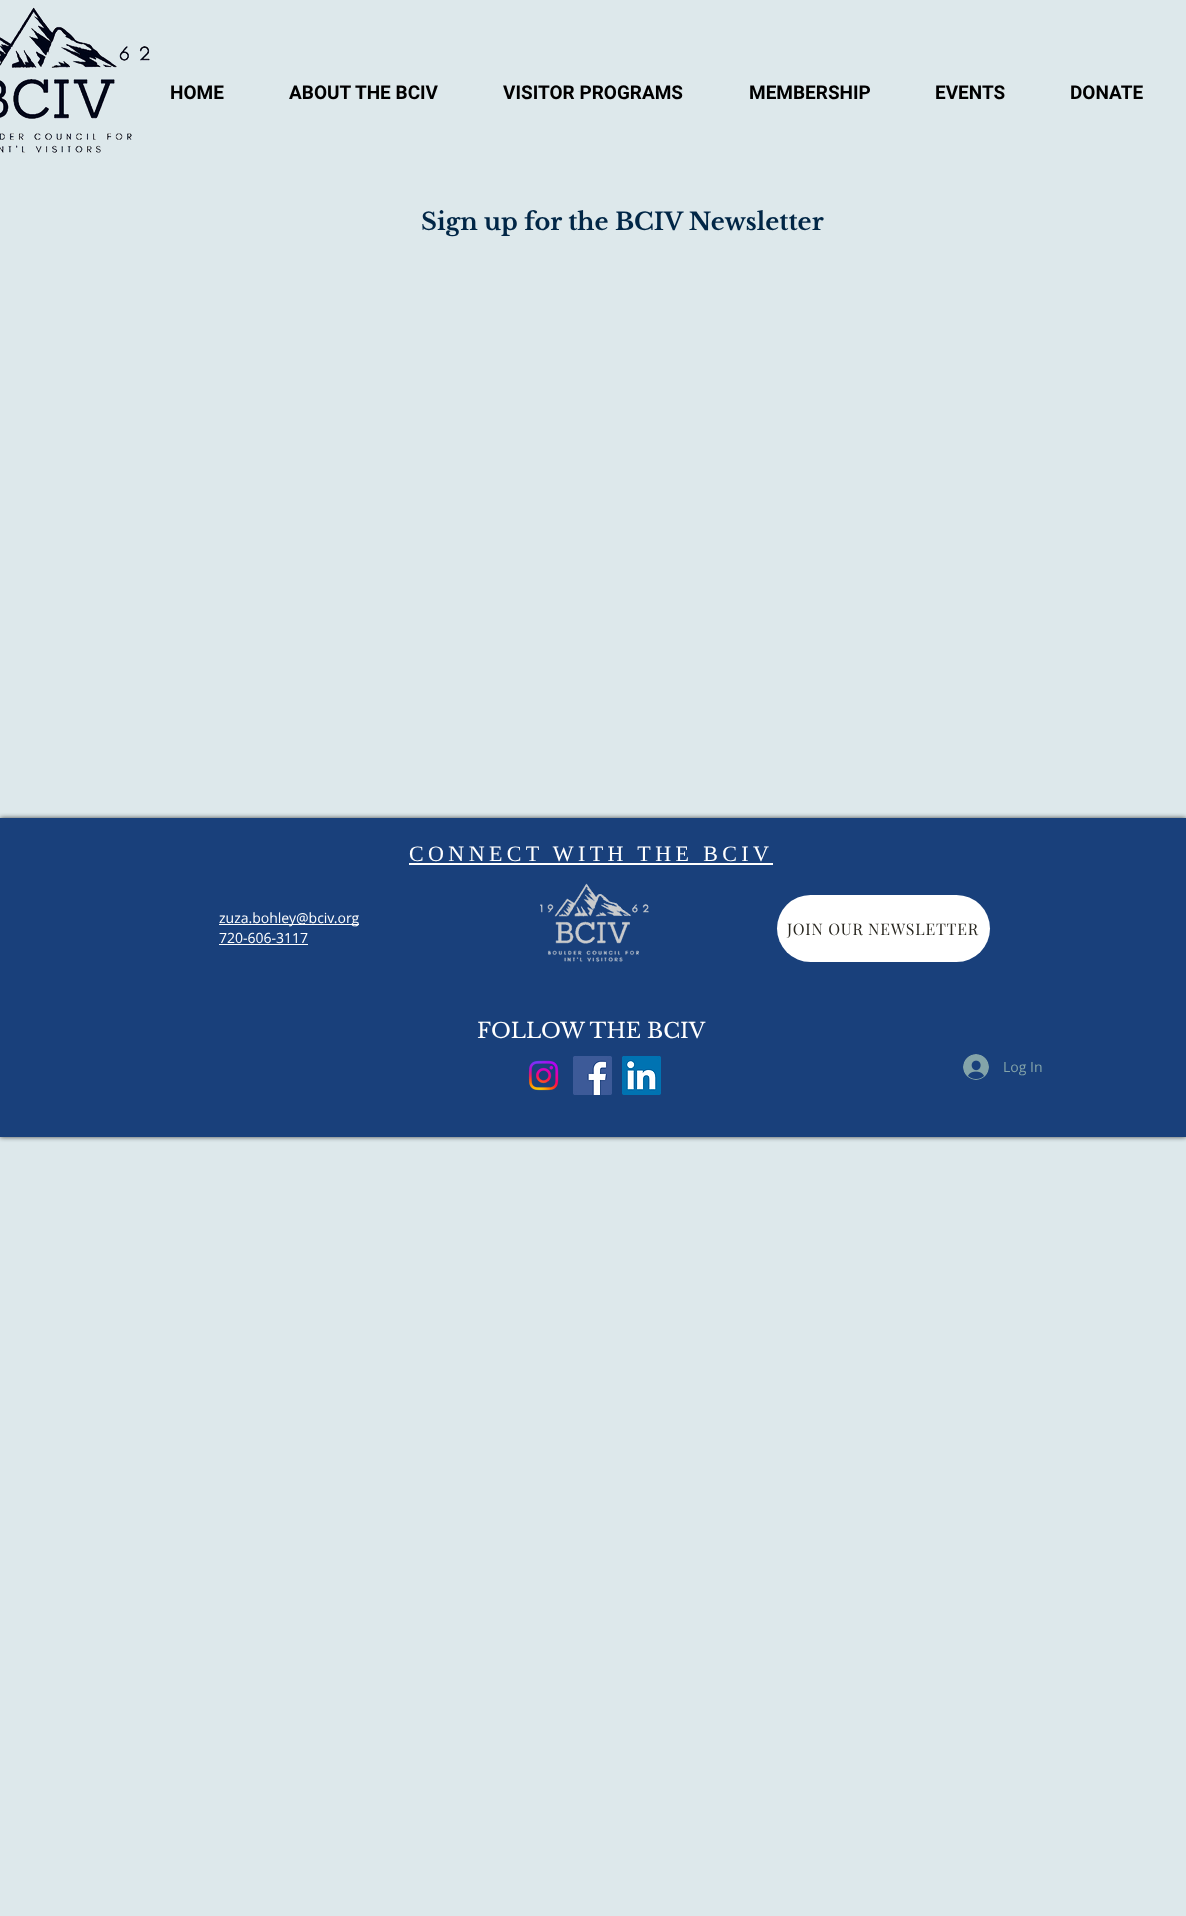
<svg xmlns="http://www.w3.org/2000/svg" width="1186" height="1916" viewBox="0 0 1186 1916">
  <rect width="100%" height="100%" fill="rgb(221,232,235)"/>
  <image x="0" y="7" width="150" height="147" href="pic1.png"/>
  <g font-family="Roboto" font-size="19" font-weight="bold" fill="rgb(0,0,0)">
    <text x="170" y="99">HOME</text>
    <text x="289" y="99">ABOUT THE BCIV</text>
    <text x="503" y="99">VISITOR PROGRAMS</text>
    <text x="749" y="99">MEMBERSHIP</text>
    <text x="935" y="99">EVENTS</text>
    <text x="1070" y="99">DONATE</text>
  </g>
  <text x="421" y="230" font-family="Libre Baskerville" font-size="24" font-weight="bold" fill="rgb(1,38,70)">Sign up for the BCIV Newsletter</text>
  <rect x="0" y="818" width="1186" height="319" fill="rgba(0,0,0,0.7)" filter="blur(2.5px)"/>
  <rect x="0" y="818" width="1186" height="319" fill="rgb(25,64,123)"/>
  <text x="409" y="861" font-family="Liberation Serif" font-size="22" letter-spacing="4.4" fill="rgb(255,255,255)">CONNECT WITH THE BCIV</text>
  <rect x="409" y="863" width="364" height="2" fill="rgb(255,255,255)"/>
  <rect x="219" y="924" width="140" height="1" fill="rgb(255,255,255)"/>
  <g font-family="Open Sans" font-size="14" fill="rgb(255,255,255)">
    <text>
      <tspan x="219" y="923">zuza.bohley@bciv.org</tspan>
      <tspan x="219" y="943">720-606-3117</tspan>
    </text>
  </g>
  <rect x="219" y="944" width="89" height="1" fill="rgb(255,255,255)"/>
  <image x="540" y="883" width="109" height="79" href="pic2.png"/>
  <rect x="777" y="895" width="213" height="67" rx="33.5" fill="rgb(255,255,255)"/>
  <text x="787" y="935" font-family="Playfair Display" font-size="16" letter-spacing="0.75" fill="rgb(41,39,32)">JOIN OUR NEWSLETTER</text>
  <text x="477" y="1038" font-family="Libre Baskerville" font-size="21" fill="rgb(255,255,255)">FOLLOW THE BCIV</text>
  <image x="528" y="1060" width="31" height="31" href="pic3.png"/>
  <image x="573" y="1056" width="39" height="39" href="pic4.png"/>
  <image x="622" y="1056" width="39" height="39" href="pic5.png"/>
  <image x="963" y="1054" width="26" height="26" href="pic6.png"/>
  <text x="1003" y="1072" font-family="Open Sans" font-size="14" fill="rgb(132,164,169)">Log In</text>
</svg>
